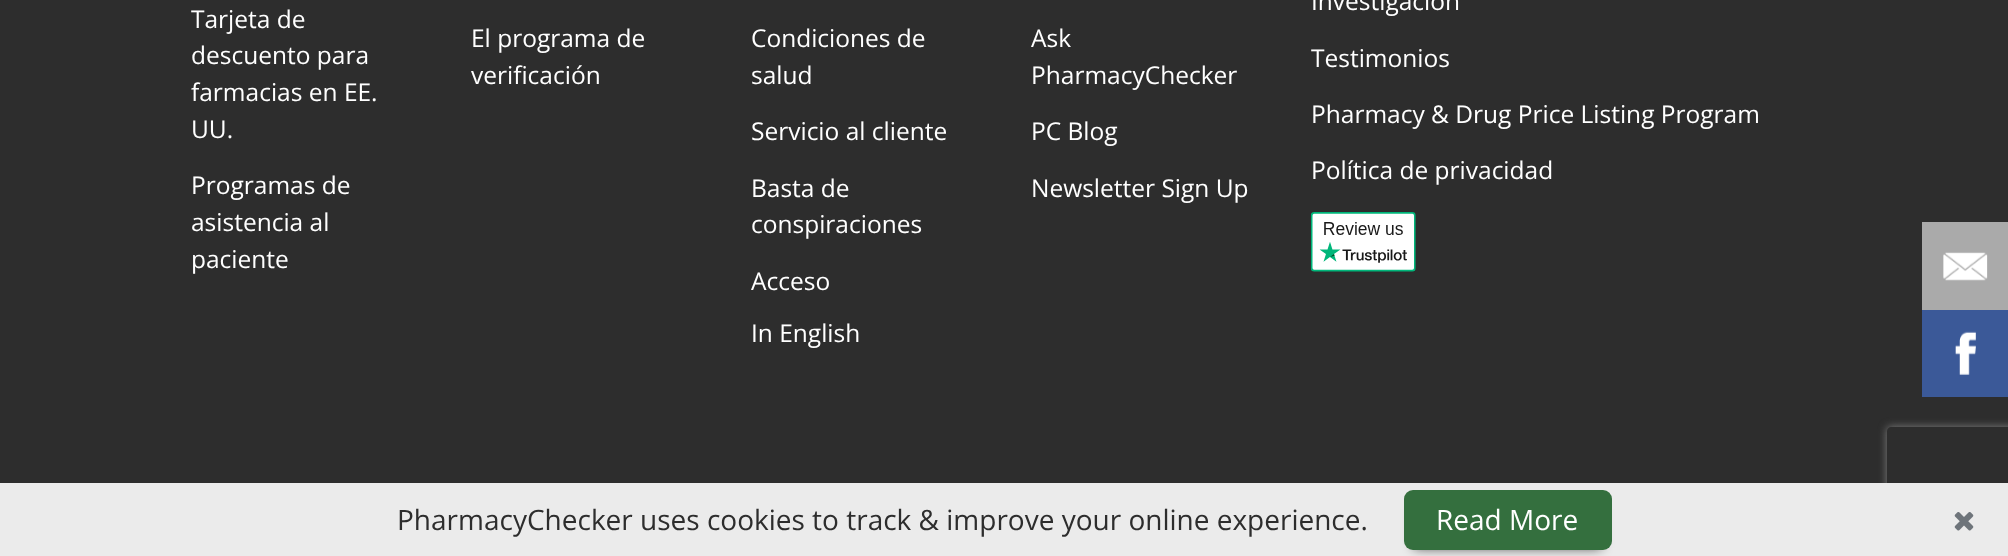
<svg xmlns="http://www.w3.org/2000/svg" width="2008" height="556" viewBox="0 0 2008 556">
  <defs>
    <clipPath id="clip1"><path d="M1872 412H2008V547H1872ZM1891 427H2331C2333 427 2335 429 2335 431V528C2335 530 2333 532 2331 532H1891C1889 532 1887 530 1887 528V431C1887 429 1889 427 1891 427Z" clip-rule="evenodd"/></clipPath>
  </defs>
  <rect width="100%" height="100%" fill="rgb(45,45,45)"/>
  <g font-family="Open Sans" font-size="24.5" fill="rgb(255,255,255)">
    <text>
      <tspan x="191" y="28">Tarjeta de</tspan>
      <tspan x="191" y="64">descuento para</tspan>
      <tspan x="191" y="101">farmacias en EE.</tspan>
      <tspan x="191" y="138">UU.</tspan>
    </text>
    <text>
      <tspan x="191" y="194">Programas de</tspan>
      <tspan x="191" y="231">asistencia al</tspan>
      <tspan x="191" y="268">paciente</tspan>
    </text>
    <text>
      <tspan x="471" y="47">El programa de</tspan>
      <tspan x="471" y="84">verificación</tspan>
    </text>
    <text>
      <tspan x="751" y="47">Condiciones de</tspan>
      <tspan x="751" y="84">salud</tspan>
    </text>
    <text x="751" y="140">Servicio al cliente</text>
    <text>
      <tspan x="751" y="197">Basta de</tspan>
      <tspan x="751" y="233">conspiraciones</tspan>
    </text>
    <text x="751" y="290">Acceso</text>
    <text x="751" y="342">In English</text>
    <text>
      <tspan x="1031" y="47">Ask</tspan>
      <tspan x="1031" y="84">PharmacyChecker</tspan>
    </text>
    <text x="1031" y="140">PC Blog</text>
    <text x="1031" y="197">Newsletter Sign Up</text>
    <text x="1311" y="10">Investigación</text>
    <text x="1311" y="67">Testimonios</text>
    <text x="1311" y="123">Pharmacy &amp; Drug Price Listing Program</text>
    <text x="1311" y="179">Política de privacidad</text>
  </g>
  <image x="1310" y="212" width="106" height="60" href="pic1.png"/>
  <rect x="1922" y="222" width="86" height="88" fill="rgb(170,170,170)"/>
  <image x="1943" y="252" width="45" height="29" href="pic2.png"/>
  <rect x="1922" y="310" width="86" height="87" fill="rgb(59,89,152)"/>
  <image x="1955" y="331" width="21" height="44" href="pic3.png"/>
  <g clip-path="url(#clip1)">
    <rect x="1887" y="427" width="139" height="105" rx="4" fill="rgb(128,128,128)" filter="blur(4.5px)"/>
  </g>
  <rect x="0" y="483" width="2008" height="73" fill="rgb(235,235,235)"/>
  <text x="397" y="530" font-family="Open Sans" font-size="28" fill="rgb(45,45,45)">PharmacyChecker uses cookies to track &amp; improve your online experience.</text>
  <rect x="1414" y="509" width="187" height="39" fill="rgba(0,0,0,0.75)" filter="blur(6px)"/>
  <rect x="1404" y="490" width="208" height="60" rx="9" fill="rgb(52,111,62)"/>
  <text x="1436" y="530" font-family="Open Sans" font-size="28" fill="rgb(255,255,255)">Read More</text>
  <image x="1954" y="512" width="20" height="19" href="pic4.png"/>
</svg>
